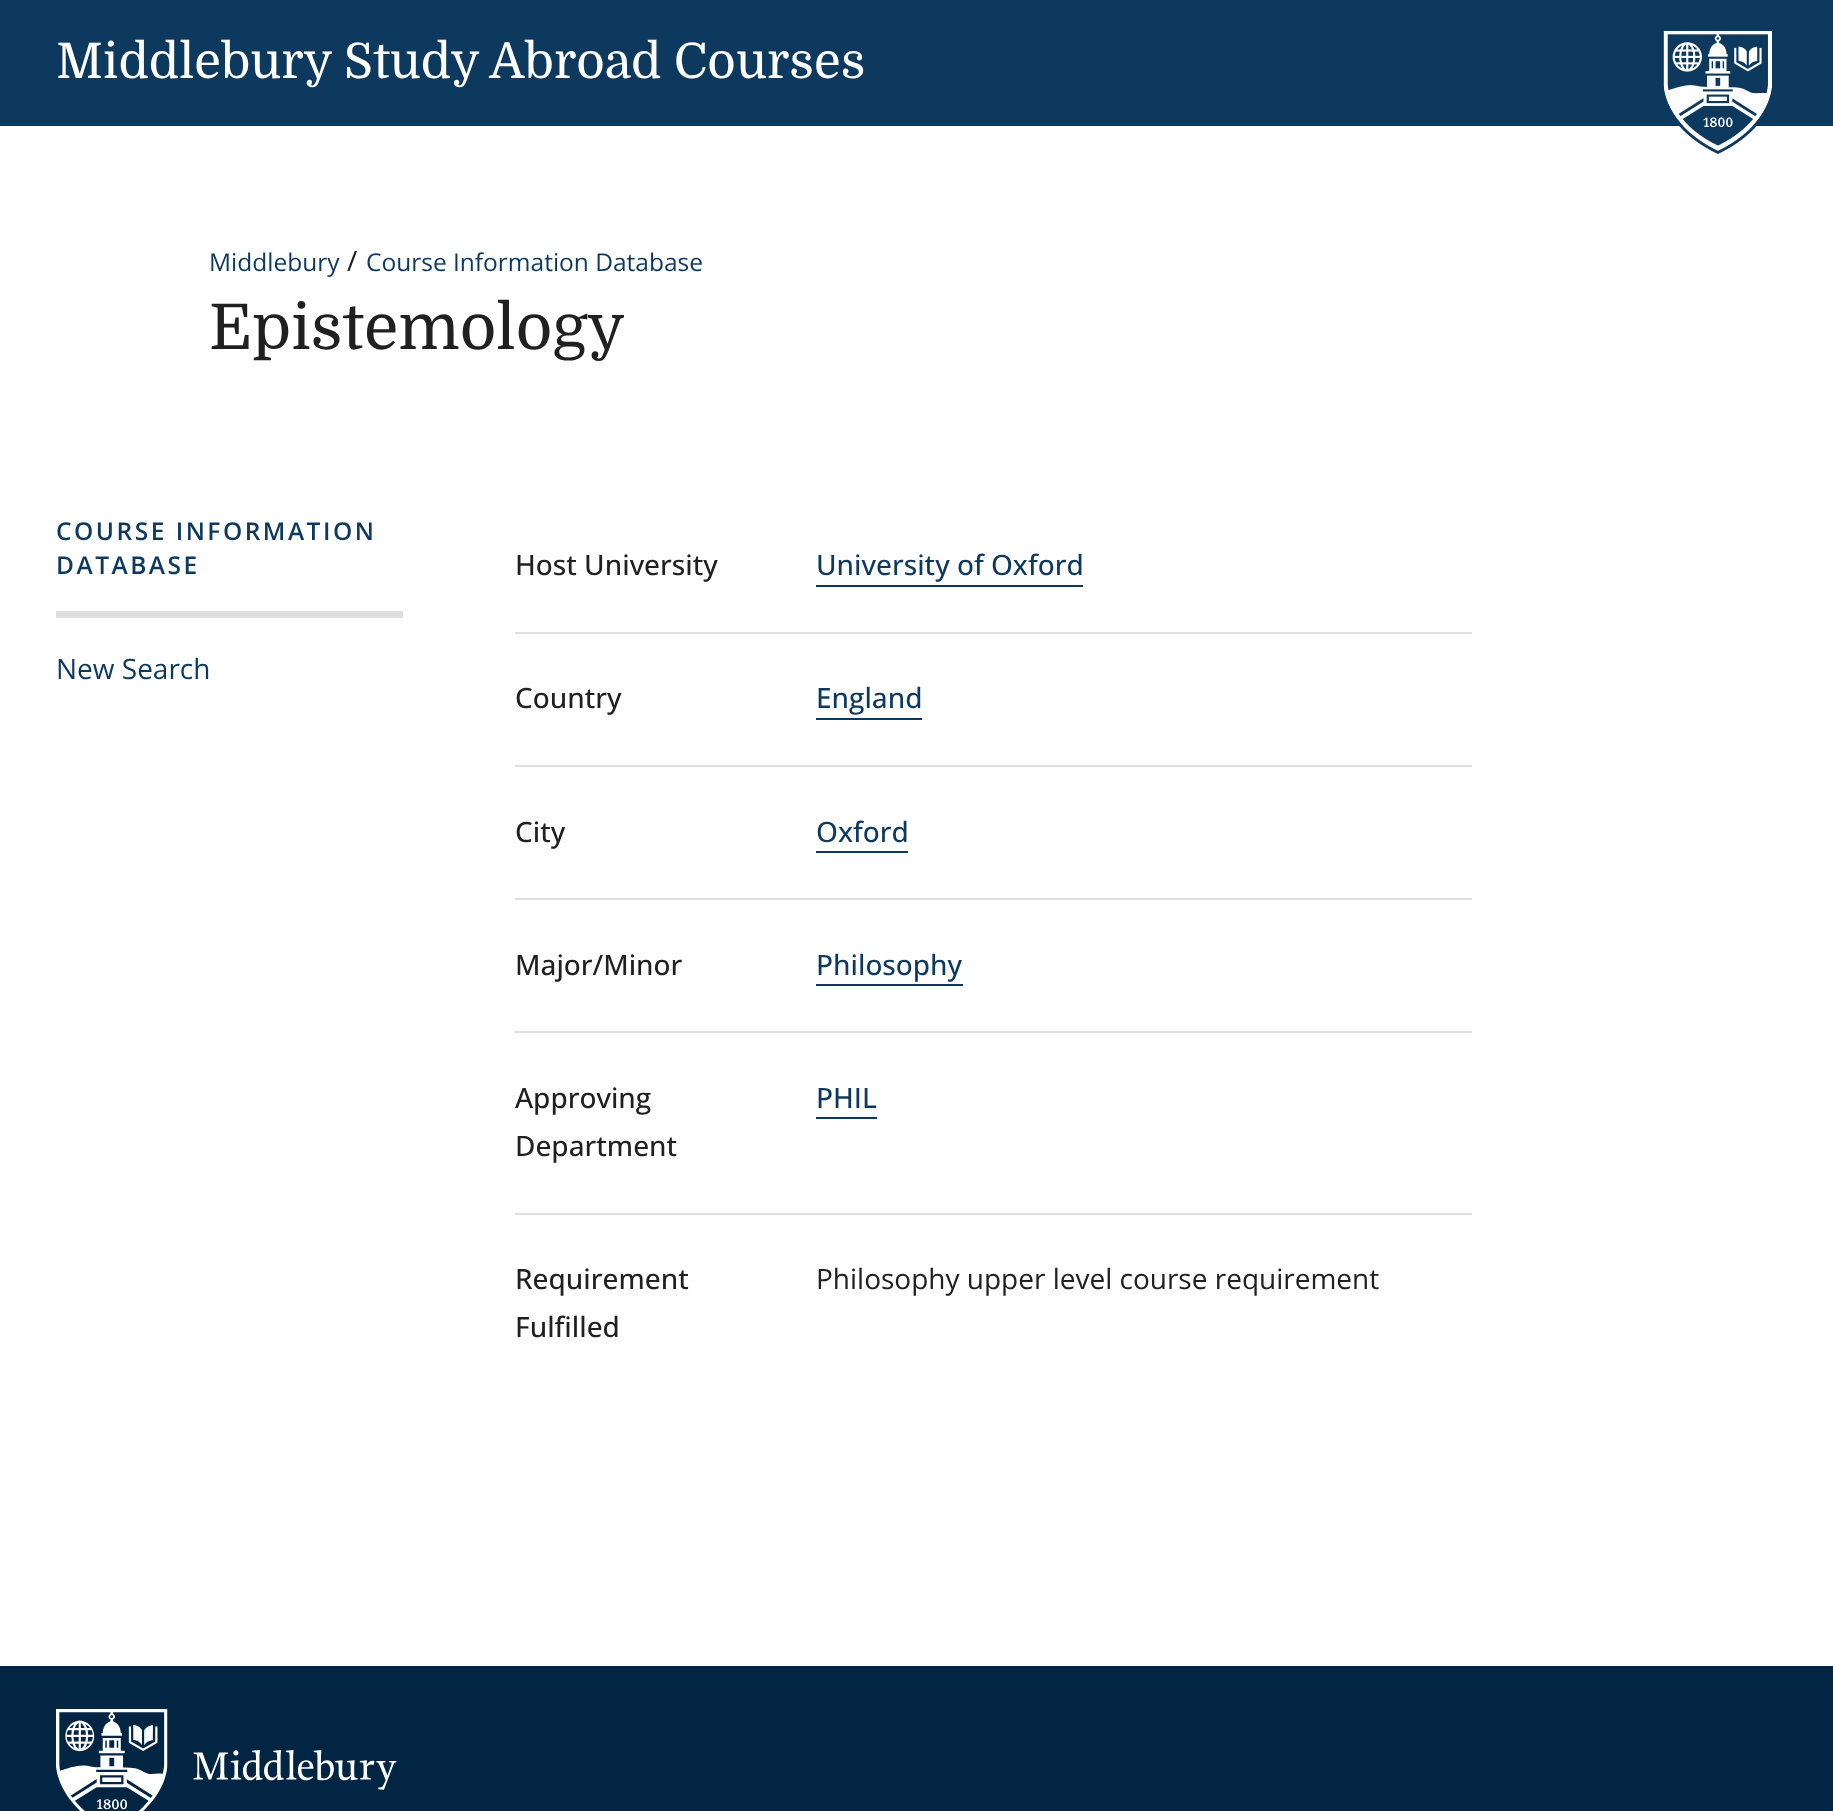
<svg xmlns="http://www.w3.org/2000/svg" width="1833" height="1811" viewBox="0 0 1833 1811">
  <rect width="100%" height="100%" fill="rgb(255,255,255)"/>
  <rect x="0" y="0" width="1833" height="126" fill="rgb(13,57,95)"/>
  <text x="56" y="78" font-family="Domine" font-size="49" fill="rgb(255,255,255)">Middlebury Study Abroad Courses</text>
  <image x="1663" y="30" width="109" height="124" href="pic1.png"/>
  <text x="209" y="271" font-family="Open Sans" font-size="24.5" fill="rgb(13,57,95)">Middlebury</text>
  <text x="347" y="271" font-family="Open Sans" font-size="28" fill="rgb(32,32,32)">/</text>
  <text x="366" y="271" font-family="Open Sans" font-size="24.5" fill="rgb(13,57,95)">Course Information Database</text>
  <text x="209" y="349" font-family="Domine" font-size="63" fill="rgb(32,32,32)">Epistemology</text>
  <rect x="56" y="611" width="347" height="7" fill="rgb(222,222,222)"/>
  <g font-family="Open Sans" font-size="24.5" font-weight="600" letter-spacing="2.5" fill="rgb(13,57,95)">
    <text>
      <tspan x="56" y="540">COURSE INFORMATION</tspan>
      <tspan x="56" y="574">DATABASE</tspan>
    </text>
  </g>
  <text x="56" y="679" font-family="Open Sans" font-size="28" fill="rgb(13,57,95)">New Search</text>
  <rect x="515" y="632" width="957" height="2" fill="rgb(222,222,222)"/>
  <text x="515" y="575" font-family="Open Sans" font-size="28" font-weight="500" fill="rgb(32,32,32)">Host University</text>
  <text x="816" y="575" font-family="Open Sans" font-size="28" font-weight="500" fill="rgb(13,57,95)">University of Oxford</text>
  <rect x="816" y="585" width="267" height="2" fill="rgb(13,57,95)"/>
  <rect x="515" y="765" width="957" height="2" fill="rgb(222,222,222)"/>
  <text x="515" y="708" font-family="Open Sans" font-size="28" font-weight="500" fill="rgb(32,32,32)">Country</text>
  <text x="816" y="708" font-family="Open Sans" font-size="28" font-weight="500" fill="rgb(13,57,95)">England</text>
  <rect x="816" y="718" width="106" height="2" fill="rgb(13,57,95)"/>
  <rect x="515" y="898" width="957" height="2" fill="rgb(222,222,222)"/>
  <text x="515" y="842" font-family="Open Sans" font-size="28" font-weight="500" fill="rgb(32,32,32)">City</text>
  <text x="816" y="842" font-family="Open Sans" font-size="28" font-weight="500" fill="rgb(13,57,95)">Oxford</text>
  <rect x="816" y="851" width="92" height="2" fill="rgb(13,57,95)"/>
  <rect x="515" y="1031" width="957" height="2" fill="rgb(222,222,222)"/>
  <text x="515" y="975" font-family="Open Sans" font-size="28" font-weight="500" fill="rgb(32,32,32)">Major/Minor</text>
  <text x="816" y="975" font-family="Open Sans" font-size="28" font-weight="500" fill="rgb(13,57,95)">Philosophy</text>
  <rect x="816" y="984" width="147" height="2" fill="rgb(13,57,95)"/>
  <rect x="515" y="1213" width="957" height="2" fill="rgb(222,222,222)"/>
  <g font-family="Open Sans" font-size="28" font-weight="500" fill="rgb(32,32,32)">
    <text>
      <tspan x="515" y="1108">Approving</tspan>
      <tspan x="515" y="1156">Department</tspan>
    </text>
  </g>
  <text x="816" y="1108" font-family="Open Sans" font-size="28" font-weight="500" fill="rgb(13,57,95)">PHIL</text>
  <rect x="816" y="1117" width="61" height="2" fill="rgb(13,57,95)"/>
  <g font-family="Open Sans" font-size="28" font-weight="500" fill="rgb(32,32,32)">
    <text>
      <tspan x="515" y="1289">Requirement</tspan>
      <tspan x="515" y="1337">Fulfilled</tspan>
    </text>
  </g>
  <text x="816" y="1289" font-family="Open Sans" font-size="28" fill="rgb(32,32,32)">Philosophy upper level course requirement</text>
  <rect x="0" y="1666" width="1833" height="145" fill="rgb(2,37,67)"/>
  <image x="56" y="1709" width="341" height="102" href="pic2.png"/>
</svg>
